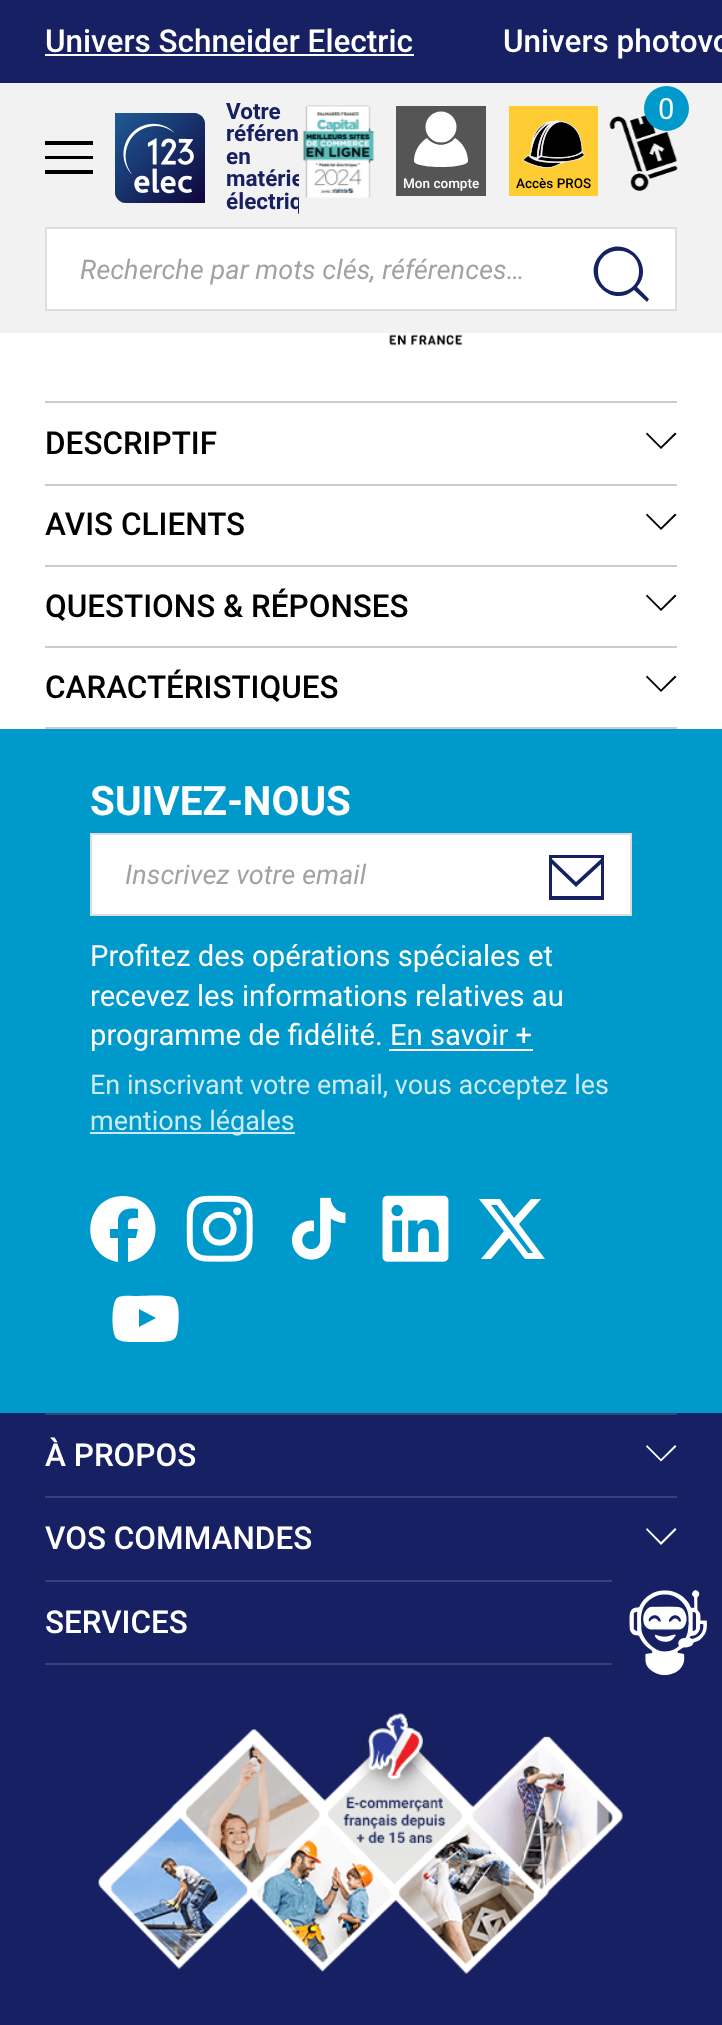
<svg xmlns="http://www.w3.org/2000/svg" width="722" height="2025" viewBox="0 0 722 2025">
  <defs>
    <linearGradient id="g1" gradientUnits="userSpaceOnUse" x1="115" y1="113" x2="205" y2="203"><stop offset="0" stop-color="rgb(31,91,151)"/><stop offset="1" stop-color="rgb(31,91,151)" stop-opacity="0"/></linearGradient>
    <clipPath id="clip1"><rect x="115" y="83" width="184" height="149"/></clipPath>
  </defs>
  <rect width="100%" height="100%" fill="rgb(255,255,255)"/>
  <rect x="0" y="83" width="722" height="250" fill="rgb(242,242,242)"/>
  <rect x="0" y="0" width="722" height="83" fill="rgb(23,32,98)"/>
  <text x="45" y="52" font-family="Roboto" font-size="31.5" font-weight="500" fill="rgb(255,255,255)">Univers Schneider Electric</text>
  <rect x="45" y="54" width="369" height="2" fill="rgb(255,255,255)"/>
  <text x="503" y="52" font-family="Roboto" font-size="31.5" font-weight="500" fill="rgb(255,255,255)">Univers photovo</text>
  <path d="M45 141H93V145H45ZM45 156H93V159H45ZM45 170H93V174H45Z" fill="rgb(0,0,0)"/>
  <path d="M115 113H194C200 113 205 118 205 124V203H126C120 203 115 198 115 192Z" fill="rgb(16,5,60)"/>
  <path d="M115 113H194C200 113 205 118 205 124V203H126C120 203 115 198 115 192Z" fill="url(#g1)"/>
  <image x="123" y="123" width="71" height="71" href="pic1.png"/>
  <g font-family="Roboto" font-size="22.5" font-weight="bold" fill="rgb(23,32,98)">
    <text>
      <tspan x="226" y="119">Votre</tspan>
      <tspan x="226" y="141">référen</tspan>
      <tspan x="226" y="164">en</tspan>
    </text>
  </g>
  <g clip-path="url(#clip1)">
    <g font-family="Roboto" font-size="22.5" font-weight="bold" fill="rgb(23,32,98)">
      <text>
        <tspan x="226" y="186">matérie</tspan>
        <tspan x="226" y="209">électriq</tspan>
      </text>
    </g>
  </g>
  <image x="609" y="115" width="69" height="76" href="pic2.png"/>
  <circle cx="666.5" cy="108.5" r="22.5" fill="rgb(0,153,204)"/>
  <text x="658" y="119" font-family="Roboto" font-size="29.25" fill="rgb(255,255,255)">0</text>
  <image x="303" y="105" width="72" height="93" href="pic3.png"/>
  <rect x="396" y="106" width="90" height="90" fill="rgb(85,85,85)"/>
  <path d="M455 138C448 147 434 147 427 138C419 143 414 152 414 161C414 169 468 169 468 161C468 152 463 143 455 138Z" fill="rgb(255,255,255)"/>
  <circle cx="441" cy="127" r="15.5" fill="rgb(255,255,255)"/>
  <text x="403" y="188" font-family="Roboto" font-size="13.5" font-weight="500" fill="rgb(255,255,255)">Mon compte</text>
  <image x="509" y="106" width="89" height="90" href="pic4.png"/>
  <text x="516" y="188" font-family="Roboto" font-size="13.5" font-weight="500" fill="rgb(0,0,0)">Accès PROS</text>
  <rect x="46" y="228" width="630" height="82" fill="rgb(255,255,255)" stroke="rgb(221,221,221)" stroke-width="2"/>
  <text x="80" y="279" font-family="Roboto" font-size="27" font-style="italic" fill="rgb(162,162,162)">Recherche par mots clés, références…</text>
  <path d="M649 299L637 287C657 264 623 232 601 254C579 276 611 310 634 290L647 302ZM598 271C598 244 639 244 639 271C639 299 598 299 598 271Z" fill="rgb(23,32,98)"/>
  <image x="389" y="333" width="74" height="13" href="pic5.png"/>
  <rect x="45" y="401" width="632" height="2" fill="rgb(204,204,204)"/>
  <text x="45" y="454" font-family="Roboto" font-size="31.5" font-weight="500" fill="rgb(0,0,0)">DESCRIPTIF</text>
  <path d="M661 449L646 434L647 432.5L661 446.5L675 432.5L676.5 434Z" fill="rgb(0,0,0)"/>
  <rect x="45" y="484" width="632" height="2" fill="rgb(204,204,204)"/>
  <text x="45" y="535" font-family="Roboto" font-size="31.5" font-weight="500" fill="rgb(0,0,0)">AVIS CLIENTS</text>
  <path d="M661 530L646 515L647 513.5L661 527.5L675 513.5L676.5 515Z" fill="rgb(0,0,0)"/>
  <rect x="45" y="565" width="632" height="2" fill="rgb(204,204,204)"/>
  <text x="45" y="617" font-family="Roboto" font-size="31.5" font-weight="500" fill="rgb(0,0,0)">QUESTIONS &amp; RÉPONSES</text>
  <path d="M661 611L646 596L647 594.5L661 608.5L675 594.5L676.5 596Z" fill="rgb(0,0,0)"/>
  <rect x="45" y="646" width="632" height="2" fill="rgb(204,204,204)"/>
  <text x="45" y="698" font-family="Roboto" font-size="31.5" font-weight="500" fill="rgb(0,0,0)">CARACTÉRISTIQUES</text>
  <path d="M661 692L646 677L647 675.5L661 689.5L675 675.5L676.5 677Z" fill="rgb(0,0,0)"/>
  <rect x="45" y="727" width="632" height="2" fill="rgb(204,204,204)"/>
  <rect x="0" y="1413" width="722" height="612" fill="rgb(23,32,98)"/>
  <rect x="0" y="729" width="722" height="684" fill="rgb(0,153,204)"/>
  <text x="90" y="815" font-family="Roboto" font-size="40.5" font-weight="bold" fill="rgb(255,255,255)">SUIVEZ-NOUS</text>
  <rect x="91" y="834" width="540" height="81" fill="rgb(255,255,255)" stroke="rgb(221,221,221)" stroke-width="2"/>
  <text x="125" y="884" font-family="Roboto" font-size="27" font-style="italic" fill="rgb(162,162,162)">Inscrivez votre email</text>
  <path d="M549 855V900H604V855ZM601 858V859L576 882L552 859V858ZM552 896V864L576 887L601 864V896Z" fill="rgb(23,32,98)"/>
  <g font-family="Roboto" font-size="29.25" fill="rgb(255,255,255)">
    <text>
      <tspan x="90" y="966">Profitez des opérations spéciales et</tspan>
      <tspan x="90" y="1006">recevez les informations relatives au</tspan>
      <tspan x="90" y="1045">programme de fidélité. En savoir +</tspan>
    </text>
  </g>
  <rect x="389" y="1049" width="144" height="2" fill="rgb(255,255,255)"/>
  <text x="90" y="1094" font-family="Roboto" font-size="27" fill="rgb(204,235,245)">En inscrivant votre email, vous acceptez les</text>
  <rect x="90" y="1132" width="205" height="2" fill="rgb(204,235,245)"/>
  <text x="90" y="1130" font-family="Roboto" font-size="27" fill="rgb(204,235,245)">mentions légales</text>
  <path d="M123 1196C83 1196 78 1255 118 1262V1238H110V1229H118V1219C120 1208 130 1208 138 1209V1218C127 1218 128 1219 128 1229H138L136 1238H128V1262C168 1255 163 1196 123 1196Z" fill="rgb(255,255,255)"/>
  <image x="186" y="1195" width="67" height="67" href="pic6.png"/>
  <image x="291" y="1197" width="55" height="63" href="pic7.png"/>
  <image x="382" y="1195" width="67" height="67" href="pic8.png"/>
  <path d="M531 1199H541L519 1224L545 1259H525L509 1238L491 1259H481L504 1231L479 1199H500L514 1218ZM528 1253H533L497 1205H491Z" fill="rgb(255,255,255)"/>
  <path d="M178 1306C177 1303 176 1299 174 1298C169 1294 143 1296 135 1296C130 1296 121 1295 117 1298C111 1303 111 1335 117 1339C122 1343 136 1342 142 1342H162C174 1341 177 1340 178 1327C179 1320 179 1312 178 1306ZM139 1327V1309L156 1318Z" fill="rgb(255,255,255)"/>
  <rect x="45" y="1413" width="632" height="2" fill="rgb(58,65,122)"/>
  <rect x="45" y="1496" width="632" height="2" fill="rgb(58,65,122)"/>
  <text x="45" y="1466" font-family="Roboto" font-size="31.5" font-weight="500" fill="rgb(255,255,255)">À PROPOS</text>
  <path d="M661 1461.5L646 1446.5L647 1445L661 1459L675 1445L676.5 1446.5Z" fill="rgb(255,255,255)"/>
  <rect x="45" y="1580" width="567" height="2" fill="rgb(58,65,122)"/>
  <text x="45" y="1549" font-family="Roboto" font-size="31.5" font-weight="500" fill="rgb(255,255,255)">VOS COMMANDES</text>
  <path d="M661 1545L646 1529.5L647 1528L661 1542L675 1528L676.5 1529.5Z" fill="rgb(255,255,255)"/>
  <rect x="45" y="1663" width="567" height="2" fill="rgb(58,65,122)"/>
  <text x="45" y="1633" font-family="Roboto" font-size="31.5" font-weight="500" fill="rgb(255,255,255)">SERVICES</text>
  <image x="98" y="1713" width="525" height="261" href="pic9.png"/>
  <image x="629" y="1590" width="78" height="86" href="pic10.png"/>
</svg>
